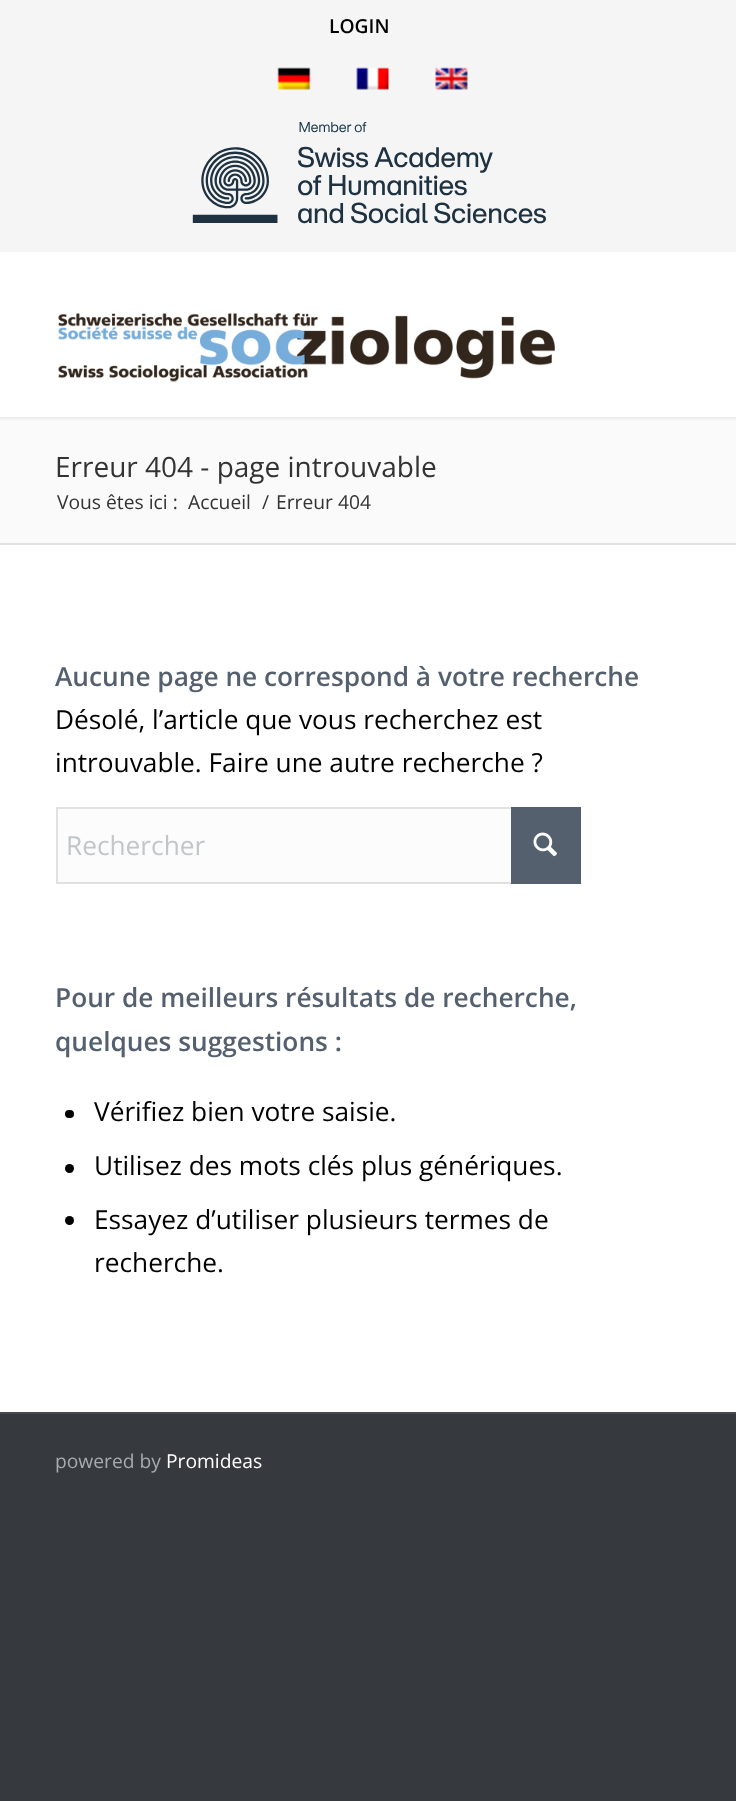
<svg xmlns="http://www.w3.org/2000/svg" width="736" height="1801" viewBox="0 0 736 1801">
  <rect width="100%" height="100%" fill="rgb(54,57,61)"/>
  <rect x="0" y="545" width="736" height="867" fill="rgb(255,255,255)"/>
  <rect x="0" y="417" width="736" height="126" fill="rgb(250,250,250)"/>
  <rect x="-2" y="-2" width="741" height="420" fill="rgba(0,0,0,0.1)" filter="blur(2px)"/>
  <rect x="0" y="0" width="736" height="252" fill="rgb(245,245,245)"/>
  <text x="329" y="33" font-family="Open Sans" font-size="19.25" font-weight="600" fill="rgb(0,0,0)">LOGIN</text>
  <image x="277" y="67" width="34" height="23" href="pic1.png"/>
  <image x="356" y="67" width="33" height="23" href="pic2.png"/>
  <image x="435" y="67" width="33" height="23" href="pic3.png"/>
  <image x="192" y="122" width="354" height="102" href="pic4.png"/>
  <rect x="0" y="252" width="736" height="165" fill="rgb(255,255,255)"/>
  <image x="58" y="313" width="497" height="69" href="pic5.png"/>
  <text x="55" y="477" font-family="Open Sans" font-size="28" fill="rgb(51,51,51)">Erreur 404 - page introuvable</text>
  <g font-family="Open Sans" font-size="19.25" fill="rgb(51,51,51)">
    <text x="57" y="509">Vous êtes ici :</text>
    <text x="188" y="509">Accueil</text>
    <text x="262" y="509">/</text>
    <text x="276" y="509">Erreur 404</text>
  </g>
  <rect x="0" y="543" width="736" height="2" fill="rgb(225,225,225)"/>
  <text x="55" y="686" font-family="Open Sans" font-size="26.25" font-weight="600" fill="rgb(85,96,110)">Aucune page ne correspond à votre recherche</text>
  <g font-family="Open Sans" font-size="26.25" fill="rgb(0,0,0)">
    <text>
      <tspan x="55" y="729">Désolé, l’article que vous recherchez est</tspan>
      <tspan x="55" y="772">introuvable. Faire une autre recherche ?</tspan>
    </text>
  </g>
  <rect x="58" y="809" width="453" height="73" fill="rgb(252,252,252)"/>
  <rect x="57" y="808" width="523" height="75" fill="none" stroke="rgb(225,225,225)" stroke-width="2"/>
  <rect x="511" y="807" width="70" height="77" fill="rgb(85,96,110)"/>
  <text x="66" y="855" font-family="Open Sans" font-size="26.25" fill="rgb(194,198,201)">Rechercher</text>
  <image x="533" y="832" width="24" height="25" href="pic6.png"/>
  <g font-family="Open Sans" font-size="26.25" font-weight="600" fill="rgb(85,96,110)">
    <text>
      <tspan x="55" y="1007">Pour de meilleurs résultats de recherche,</tspan>
      <tspan x="55" y="1051">quelques suggestions :</tspan>
    </text>
  </g>
  <rect x="65" y="1110" width="9" height="8" rx="4" fill="rgb(0,0,0)"/>
  <text x="94" y="1121" font-family="Open Sans" font-size="26.25" fill="rgb(0,0,0)">Vérifiez bien votre saisie.</text>
  <circle cx="69.5" cy="1168.5" r="4.5" fill="rgb(0,0,0)"/>
  <text x="94" y="1175" font-family="Open Sans" font-size="26.25" fill="rgb(0,0,0)">Utilisez des mots clés plus génériques.</text>
  <circle cx="69.5" cy="1220.5" r="4.5" fill="rgb(0,0,0)"/>
  <g font-family="Open Sans" font-size="26.25" fill="rgb(0,0,0)">
    <text>
      <tspan x="94" y="1229">Essayez d’utiliser plusieurs termes de</tspan>
      <tspan x="94" y="1272">recherche.</tspan>
    </text>
  </g>
  <rect x="0" y="1412" width="736" height="2" fill="rgb(69,73,77)"/>
  <text x="55" y="1468" font-family="Open Sans" font-size="19.25" fill="rgb(167,171,177)">powered by</text>
  <text x="166" y="1468" font-family="Open Sans" font-size="19.25" fill="rgb(255,255,255)">Promideas</text>
</svg>
